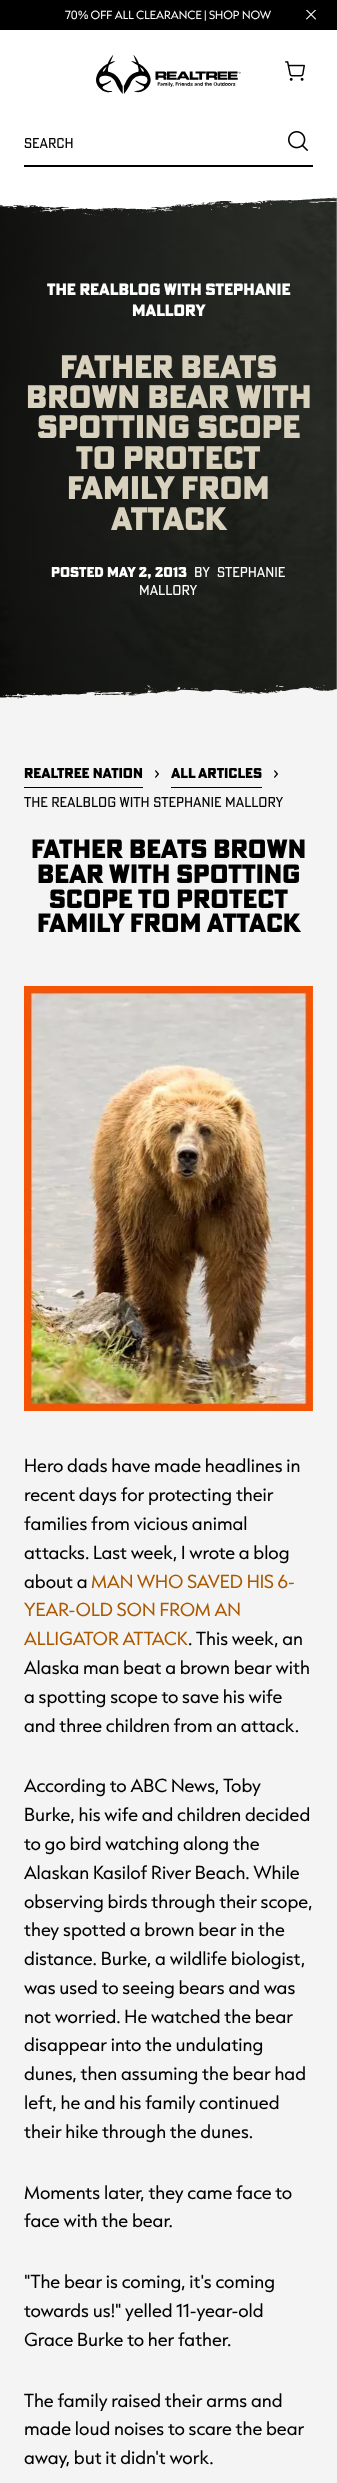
<svg xmlns="http://www.w3.org/2000/svg" width="337" height="2483" viewBox="0 0 337 2483">
  <defs>
    <linearGradient id="g1" gradientUnits="userSpaceOnUse" x1="0" y1="449" x2="337" y2="449"><stop offset="0" stop-color="rgb(0,0,0)" stop-opacity="0.7"/><stop offset="1" stop-color="rgb(0,0,0)" stop-opacity="0.2"/></linearGradient>
  </defs>
  <rect width="100%" height="100%" fill="rgb(244,244,244)"/>
  <rect x="0" y="0" width="337" height="30" fill="rgb(0,0,0)"/>
  <text x="65" y="19" font-family="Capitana" font-size="10" fill="rgb(255,255,255)">70% OFF ALL CLEARANCE | SHOP NOW</text>
  <image x="306" y="10" width="10" height="10" href="pic1.png"/>
  <rect x="0" y="30" width="337" height="149" fill="rgb(255,255,255)"/>
  <image x="96" y="55" width="145" height="39" href="pic2.png"/>
  <image x="285" y="61" width="20" height="20" href="pic3.png"/>
  <rect x="24" y="165" width="289" height="2" fill="rgb(0,0,0)"/>
  <text x="24" y="148" font-family="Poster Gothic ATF" font-size="14" fill="rgb(0,0,0)">Search</text>
  <image x="288" y="131" width="20" height="20" href="pic4.png"/>
  <image x="0" y="197" width="337" height="502" href="pic6.png"/>
  <rect x="0" y="197" width="337" height="502" fill="url(#g1)"/>
  <image x="0" y="179" width="337" height="38" href="pic5.png"/>
  <g font-family="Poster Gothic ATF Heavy" font-size="16" font-weight="900" fill="rgb(255,255,255)">
    <text x="47" y="295">THE REALBLOG WITH STEPHANIE</text>
    <text x="132" y="316">MALLORY</text>
  </g>
  <g font-family="Poster Gothic ATF Heavy" font-size="32" font-weight="900" fill="rgb(216,209,189)">
    <text x="60" y="378">FATHER BEATS</text>
    <text x="26" y="408">BROWN BEAR WITH</text>
    <text x="37" y="438">SPOTTING SCOPE</text>
    <text x="76" y="469">TO PROTECT</text>
    <text x="67" y="499">FAMILY FROM</text>
    <text x="111" y="530">ATTACK</text>
  </g>
  <text x="51" y="577" font-family="Poster Gothic ATF Heavy" font-size="14" font-weight="900" fill="rgb(255,255,255)">POSTED MAY 2, 2013</text>
  <g font-family="Poster Gothic ATF" font-size="14" fill="rgb(255,255,255)">
    <text x="194" y="577">BY</text>
    <text x="217" y="577">STEPHANIE</text>
    <text x="139" y="595">MALLORY</text>
  </g>
  <image x="0" y="684" width="337" height="35" href="pic7.png"/>
  <rect x="24" y="787" width="119" height="1" fill="rgb(0,0,0)"/>
  <text x="24" y="778" font-family="Poster Gothic ATF Heavy" font-size="14" font-weight="900" fill="rgb(0,0,0)">REALTREE NATION</text>
  <image x="155" y="770" width="4" height="8" href="pic8.png"/>
  <rect x="171" y="787" width="91" height="1" fill="rgb(0,0,0)"/>
  <text x="171" y="778" font-family="Poster Gothic ATF Heavy" font-size="14" font-weight="900" fill="rgb(0,0,0)">ALL ARTICLES</text>
  <image x="274" y="770" width="4" height="8" href="pic9.png"/>
  <text x="24" y="807" font-family="Poster Gothic ATF" font-size="14" fill="rgb(0,0,0)">THE REALBLOG WITH STEPHANIE MALLORY</text>
  <g font-family="Poster Gothic ATF Heavy" font-size="26" font-weight="900" fill="rgb(0,0,0)">
    <text x="31" y="858">Father Beats Brown</text>
    <text x="37" y="883">Bear with Spotting</text>
    <text x="49" y="908">Scope to Protect</text>
    <text x="37" y="932">Family from Attack</text>
  </g>
  <image x="24" y="986" width="289" height="425" href="pic10.png"/>
  <g font-family="Capitana" font-size="16" fill="rgb(0,0,0)">
    <text>
      <tspan x="24" y="1472">Hero dads have made headlines in</tspan>
      <tspan x="24" y="1501">recent days for protecting their</tspan>
      <tspan x="24" y="1530">families from vicious animal</tspan>
      <tspan x="24" y="1559">attacks. Last week, I wrote a blog</tspan>
      <tspan x="24" y="1588">about a</tspan>
    </text>
  </g>
  <g font-family="Capitana" font-size="16" fill="rgb(170,89,0)">
    <text x="91" y="1588">MAN WHO SAVED HIS 6-</text>
    <text>
      <tspan x="24" y="1616">YEAR-OLD SON FROM AN</tspan>
      <tspan x="24" y="1645">ALLIGATOR ATTACK</tspan>
    </text>
  </g>
  <g font-family="Capitana" font-size="16" fill="rgb(0,0,0)">
    <text x="188" y="1645">. This week, an</text>
    <text>
      <tspan x="24" y="1674">Alaska man beat a brown bear with</tspan>
      <tspan x="24" y="1703">a spotting scope to save his wife</tspan>
      <tspan x="24" y="1732">and three children from an attack.</tspan>
    </text>
    <text>
      <tspan x="24" y="1792">According to ABC News, Toby</tspan>
      <tspan x="24" y="1821">Burke, his wife and children decided</tspan>
      <tspan x="24" y="1850">to go bird watching along the</tspan>
      <tspan x="24" y="1879">Alaskan Kasilof River Beach. While</tspan>
      <tspan x="24" y="1908">observing birds through their scope,</tspan>
      <tspan x="24" y="1936">they spotted a brown bear in the</tspan>
      <tspan x="24" y="1965">distance. Burke, a wildlife biologist,</tspan>
      <tspan x="24" y="1994">was used to seeing bears and was</tspan>
      <tspan x="24" y="2023">not worried. He watched the bear</tspan>
      <tspan x="24" y="2051">disappear into the undulating</tspan>
      <tspan x="24" y="2080">dunes, then assuming the bear had</tspan>
      <tspan x="24" y="2109">left, he and his family continued</tspan>
      <tspan x="24" y="2138">their hike through the dunes.</tspan>
    </text>
    <text>
      <tspan x="24" y="2199">Moments later, they came face to</tspan>
      <tspan x="24" y="2227">face with the bear.</tspan>
    </text>
    <text>
      <tspan x="24" y="2288">"The bear is coming, it's coming</tspan>
      <tspan x="24" y="2317">towards us!" yelled 11-year-old</tspan>
      <tspan x="24" y="2346">Grace Burke to her father.</tspan>
    </text>
    <text>
      <tspan x="24" y="2407">The family raised their arms and</tspan>
      <tspan x="24" y="2435">made loud noises to scare the bear</tspan>
      <tspan x="24" y="2464">away, but it didn't work.</tspan>
    </text>
  </g>
</svg>
